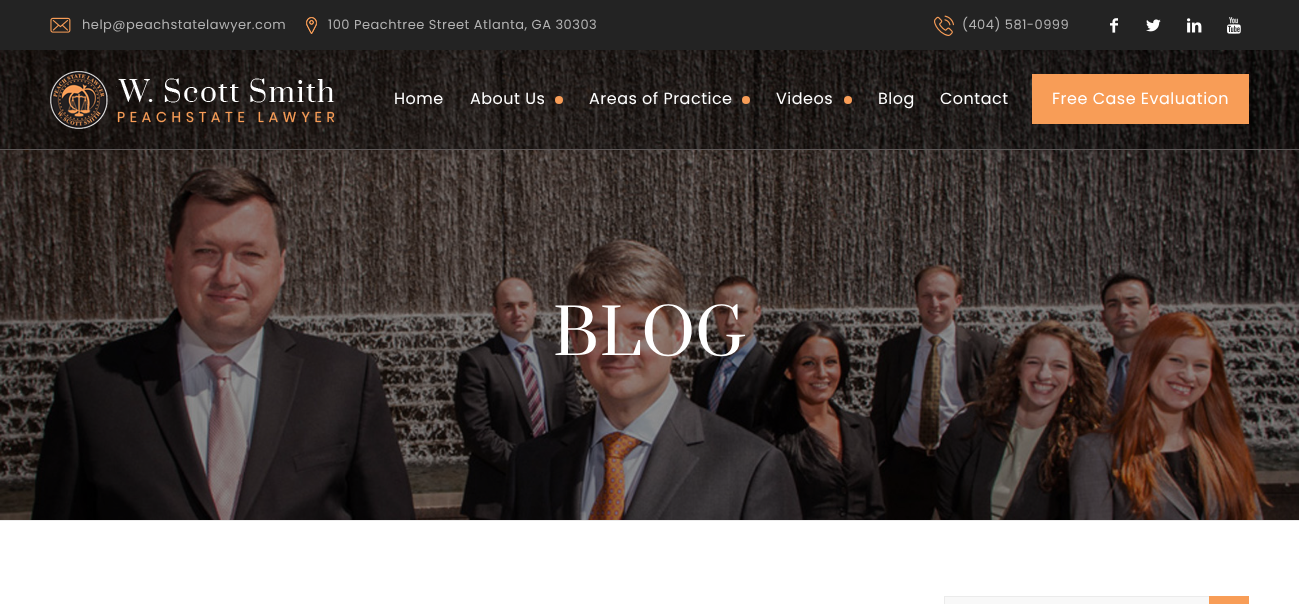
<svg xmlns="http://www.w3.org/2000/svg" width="1299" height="604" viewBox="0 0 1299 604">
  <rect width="100%" height="100%" fill="rgb(255,255,255)"/>
  <rect x="0" y="0" width="1299" height="50" fill="rgb(35,35,35)"/>
  <image x="50" y="17" width="21" height="16" href="pic1.png"/>
  <text x="82" y="29" font-family="Poppins" font-size="13" letter-spacing="0.5" fill="rgb(178,178,178)">help@peachstatelawyer.com</text>
  <image x="306" y="17" width="11" height="17" href="pic2.png"/>
  <text x="328" y="29" font-family="Poppins" font-size="13" letter-spacing="0.5" fill="rgb(178,178,178)">100 Peachtree Street Atlanta, GA 30303</text>
  <image x="934" y="15" width="20" height="21" href="pic3.png"/>
  <text x="962" y="29" font-family="Poppins" font-size="13" letter-spacing="0.5" fill="rgb(178,178,178)">(404) 581-0999</text>
  <image x="1110" y="18" width="8" height="15" href="pic4.png"/>
  <image x="1146" y="19" width="15" height="13" href="pic5.png"/>
  <image x="1187" y="18" width="15" height="15" href="pic6.png"/>
  <image x="1227" y="17" width="14" height="17" href="pic7.png"/>
  <image x="0" y="50" width="1299" height="470" href="pic9.png"/>
  <rect x="0" y="50" width="1299" height="99" fill="rgba(0,0,0,0.4)"/>
  <rect x="0" y="149" width="1299" height="1" fill="rgb(94,89,89)"/>
  <image x="50" y="71" width="285" height="58" href="pic8.png"/>
  <g font-family="Poppins" font-size="16" letter-spacing="0.5" fill="rgb(255,255,255)">
    <text x="394" y="104">Home</text>
    <text x="470" y="104">About Us</text>
  </g>
  <circle cx="559" cy="100" r="4" fill="rgb(248,157,87)"/>
  <text x="589" y="104" font-family="Poppins" font-size="16" letter-spacing="0.5" fill="rgb(255,255,255)">Areas of Practice</text>
  <circle cx="746" cy="100" r="4" fill="rgb(248,157,87)"/>
  <text x="776" y="104" font-family="Poppins" font-size="16" letter-spacing="0.5" fill="rgb(255,255,255)">Videos</text>
  <circle cx="848" cy="100" r="4" fill="rgb(248,157,87)"/>
  <g font-family="Poppins" font-size="16" letter-spacing="0.5" fill="rgb(255,255,255)">
    <text x="878" y="104">Blog</text>
    <text x="940" y="104">Contact</text>
  </g>
  <rect x="1032" y="74" width="217" height="50" fill="rgb(248,157,87)"/>
  <text x="1052" y="104" font-family="Poppins" font-size="16" letter-spacing="0.5" fill="rgb(255,255,255)">Free Case Evaluation</text>
  <text x="553" y="355" font-family="Prata" font-size="62" letter-spacing="0.5" fill="rgb(255,255,255)">BLOG</text>
  <rect x="0" y="520" width="1299" height="1" fill="rgb(235,235,235)"/>
  <rect x="944" y="597" width="265" height="7" fill="rgb(248,248,248)"/>
  <rect x="944.5" y="596.5" width="304" height="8" fill="none" stroke="rgb(235,235,235)"/>
  <rect x="1209" y="596" width="40" height="8" fill="rgb(248,157,87)"/>
</svg>
